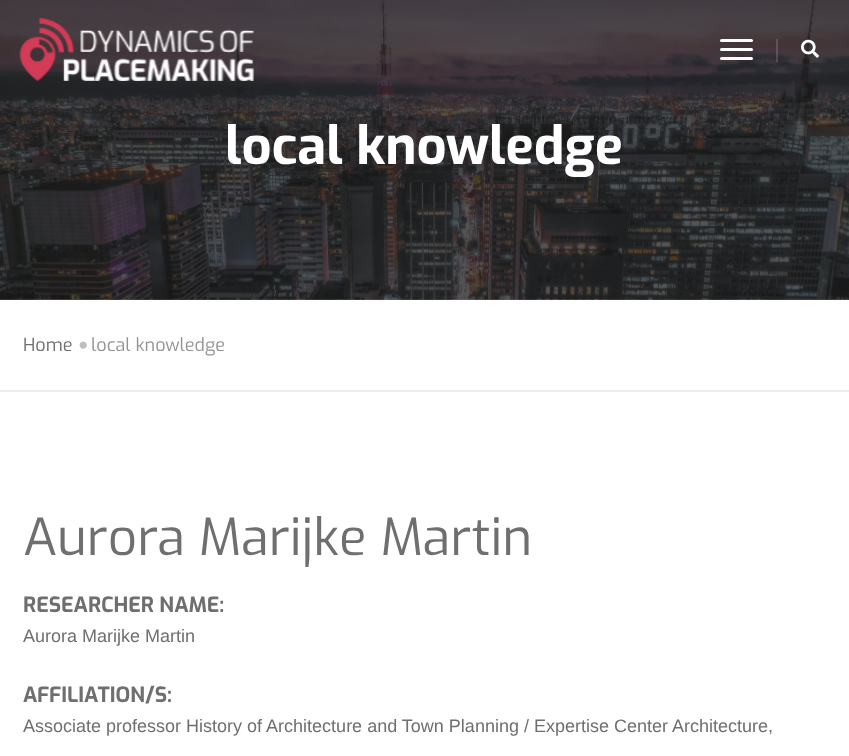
<svg xmlns="http://www.w3.org/2000/svg" width="849" height="756" viewBox="0 0 849 756">
  <rect width="100%" height="100%" fill="rgb(255,255,255)"/>
  <image x="0" y="0" width="849" height="300" href="pic3.png"/>
  <image x="19" y="18" width="235" height="63" href="pic1.png"/>
  <rect x="720" y="39" width="33" height="3" rx="1.5" fill="rgb(255,255,255)"/>
  <rect x="720" y="48" width="33" height="3" rx="1.5" fill="rgb(255,255,255)"/>
  <rect x="720" y="57" width="33" height="3" rx="1.5" fill="rgb(255,255,255)"/>
  <rect x="776" y="39" width="2" height="23" fill="rgba(255,255,255,0.15)"/>
  <image x="801" y="39" width="18" height="19" href="pic2.png"/>
  <text x="225" y="164" font-family="Exo" font-size="52.5" font-weight="bold" fill="rgb(255,255,255)">local knowledge</text>
  <rect x="0" y="390" width="849" height="2" fill="rgb(237,237,237)"/>
  <text x="23" y="351" font-family="Exo" font-size="18" fill="rgb(111,111,111)">Home</text>
  <image x="79" y="341" width="8" height="8" href="pic4.png"/>
  <text x="91" y="351" font-family="Exo" font-size="18" fill="rgb(147,147,147)">local knowledge</text>
  <text x="23" y="555" font-family="Exo" font-size="51" fill="rgb(111,111,111)">Aurora Marijke Martin</text>
  <text x="23" y="612" font-family="Exo" font-size="21" font-weight="bold" fill="rgb(111,111,111)">RESEARCHER NAME:</text>
  <text x="23" y="642" font-family="Liberation Sans" font-size="18" fill="rgb(111,111,111)">Aurora Marijke Martin</text>
  <text x="23" y="702" font-family="Exo" font-size="21" font-weight="bold" fill="rgb(111,111,111)">AFFILIATION/S:</text>
  <text x="23" y="732" font-family="Liberation Sans" font-size="18" fill="rgb(111,111,111)">Associate professor History of Architecture and Town Planning / Expertise Center Architecture,</text>
</svg>
